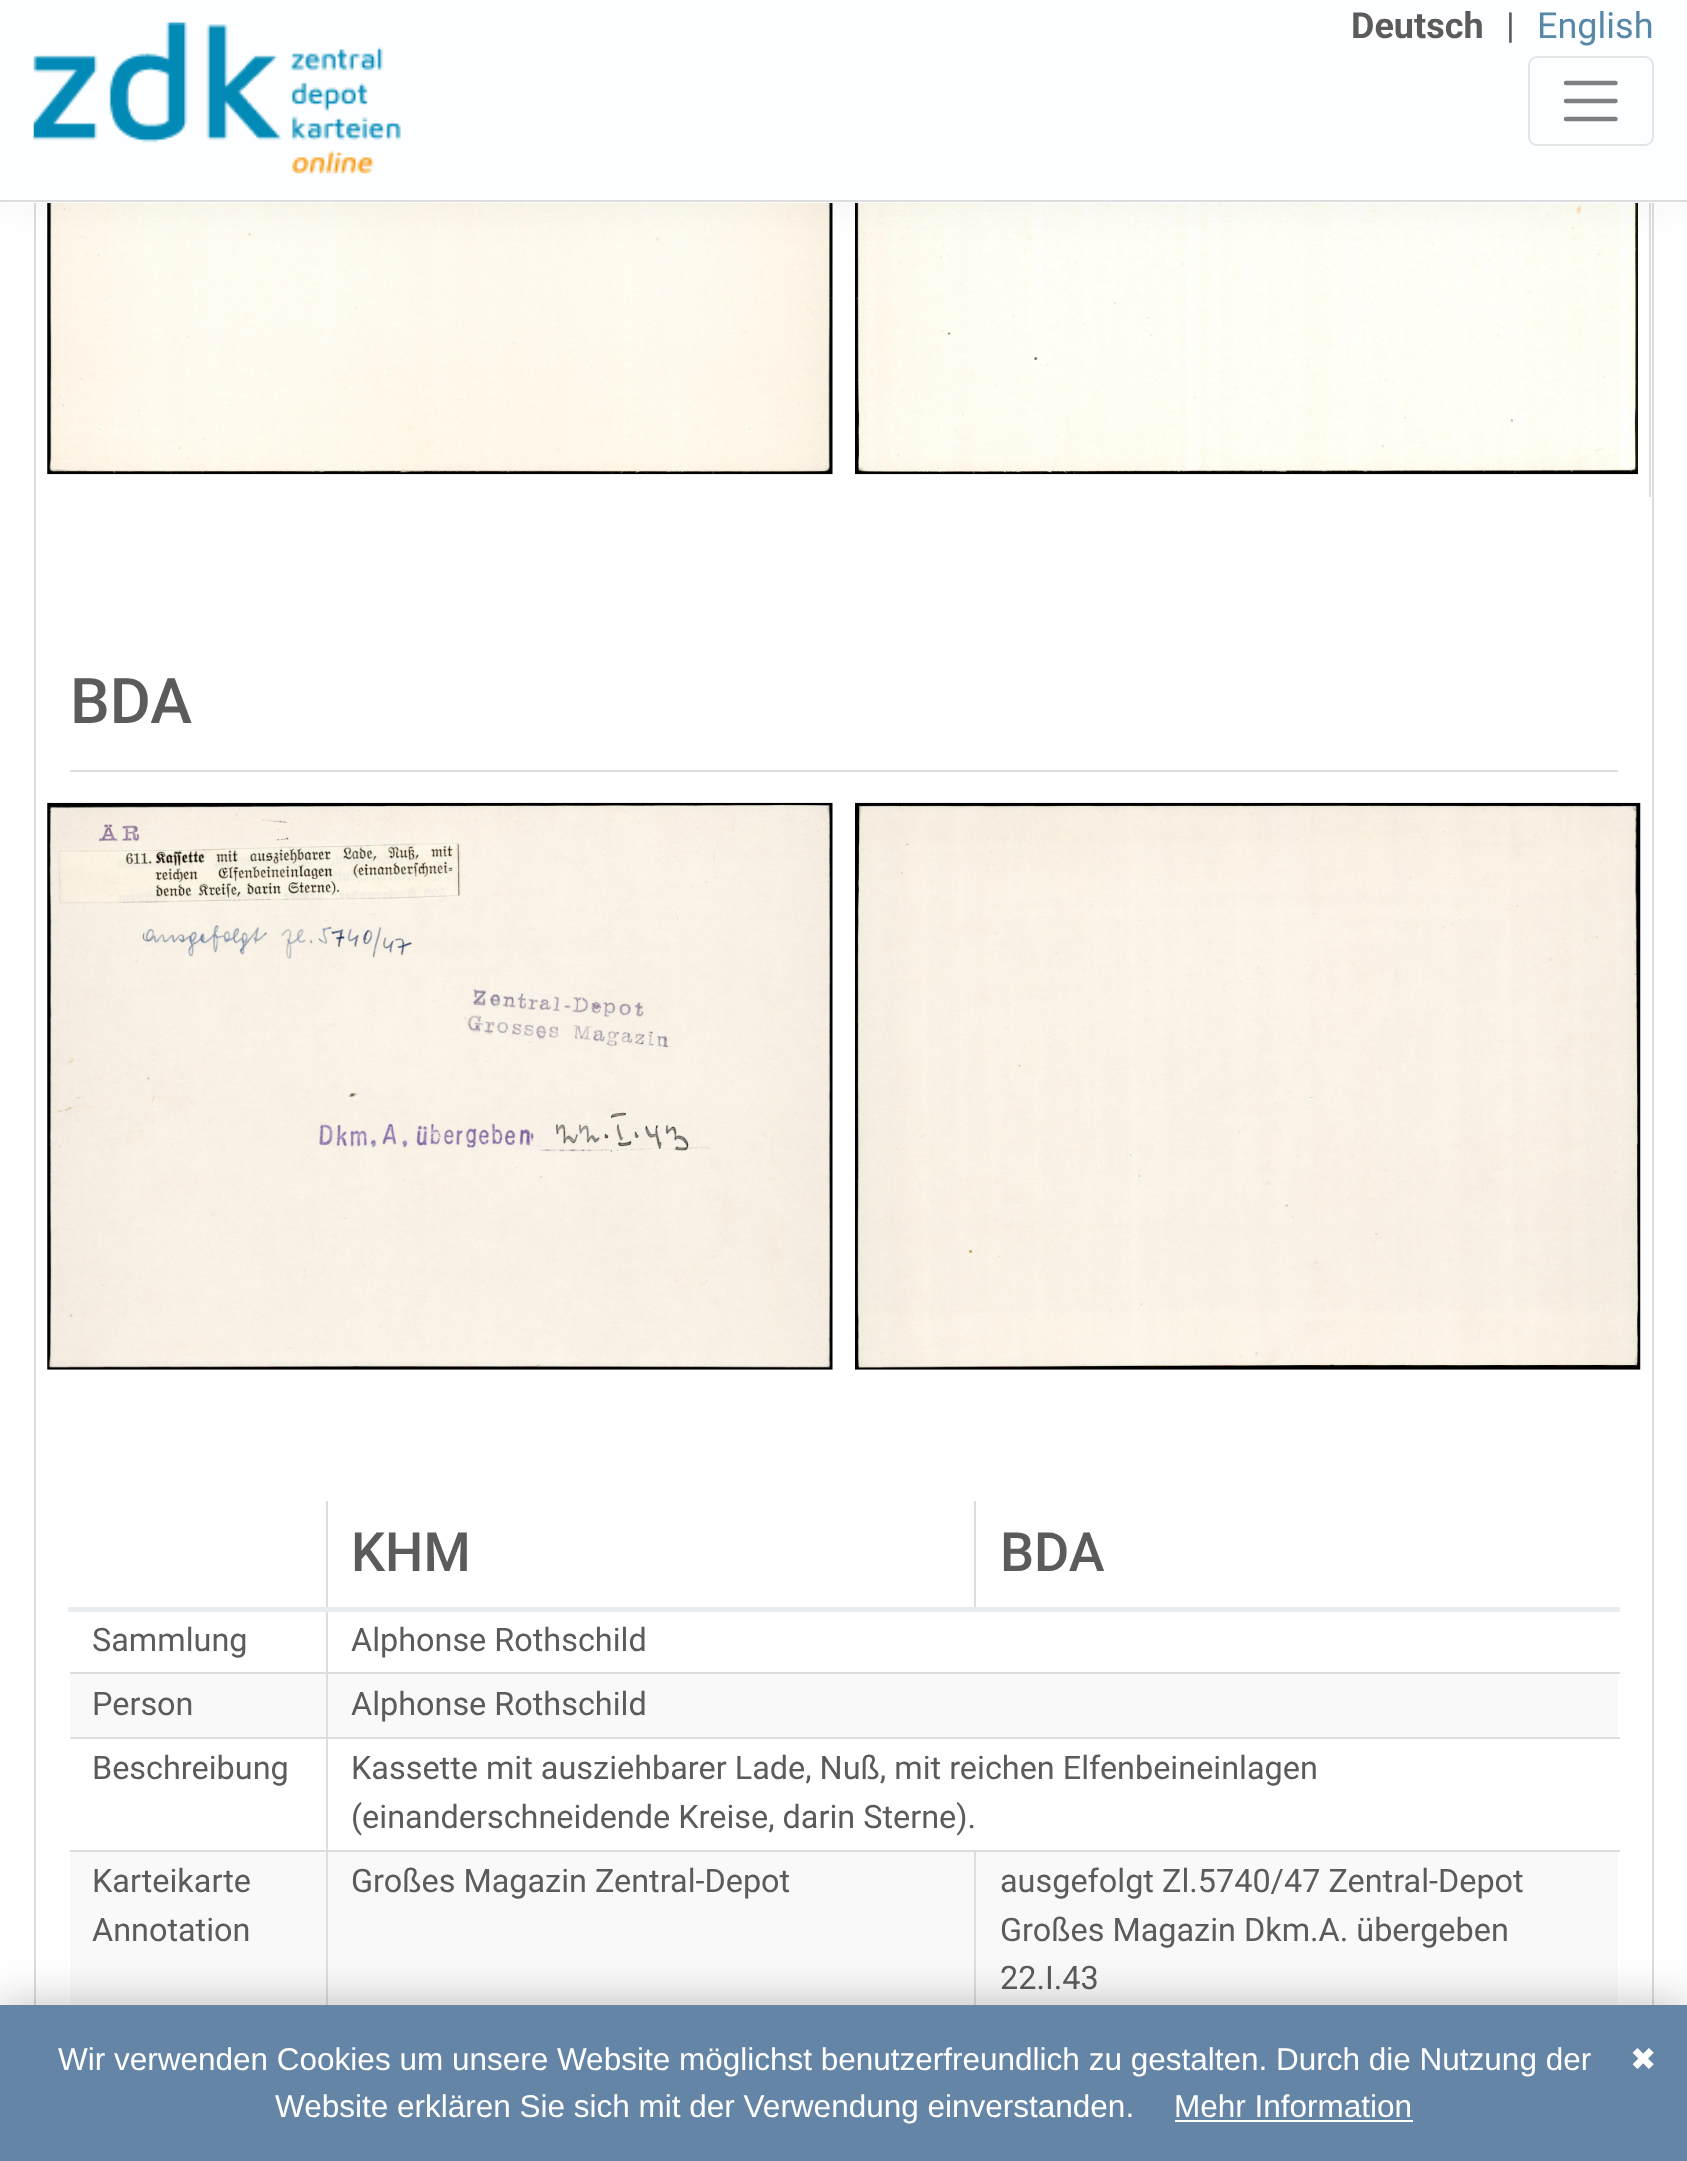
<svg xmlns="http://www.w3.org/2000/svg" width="1687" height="2161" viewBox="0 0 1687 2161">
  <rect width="100%" height="100%" fill="rgb(255,255,255)"/>
  <rect x="1652" y="203" width="2" height="1802" fill="rgb(221,221,221)"/>
  <rect x="34" y="203" width="2" height="1802" fill="rgb(221,221,221)"/>
  <rect x="1649" y="203" width="2" height="294" fill="rgb(221,221,221)"/>
  <image x="47" y="203" width="786" height="272" href="pic2.png"/>
  <image x="855" y="203" width="783" height="272" href="pic3.png"/>
  <rect x="0" y="0" width="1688" height="203" fill="rgba(0,0,0,0.05)" filter="blur(22.5px)"/>
  <rect x="0" y="0" width="1687" height="203" fill="rgb(252,254,255)"/>
  <rect x="0" y="200" width="1687" height="2" fill="rgb(221,221,221)"/>
  <image x="33" y="22" width="368" height="152" href="pic1.png"/>
  <text x="1351" y="38" font-family="Roboto" font-size="36" font-weight="bold" fill="rgb(91,91,91)">Deutsch</text>
  <text x="1506" y="38" font-family="Roboto" font-size="36" fill="rgb(91,91,91)">|</text>
  <text x="1537" y="38" font-family="Roboto" font-size="36" fill="rgb(87,136,168)">English</text>
  <rect x="1529" y="57" width="124" height="88" rx="8" fill="none" stroke="rgb(227,229,230)" stroke-width="2"/>
  <path d="M1566 83H1615.5M1566 101H1615.5M1566 119H1615.5" fill="none" stroke="rgb(126,127,128)" stroke-width="4.5" stroke-linecap="round"/>
  <rect x="70" y="770" width="1548" height="2" fill="rgb(221,221,221)"/>
  <text x="70" y="723" font-family="Roboto" font-size="63" font-weight="500" fill="rgb(91,91,91)">BDA</text>
  <image x="47" y="802" width="786" height="568" href="pic4.png"/>
  <image x="855" y="802" width="786" height="568" href="pic5.png"/>
  <rect x="974" y="1501" width="2" height="108" fill="rgb(221,221,221)"/>
  <text x="351" y="1571" font-family="Roboto" font-size="54" font-weight="500" fill="rgb(91,91,91)">KHM</text>
  <rect x="70" y="1672" width="1550" height="2" fill="rgb(221,221,221)"/>
  <rect x="70" y="1674" width="1548" height="63" fill="rgb(249,249,249)"/>
  <rect x="70" y="1737" width="1550" height="2" fill="rgb(221,221,221)"/>
  <rect x="70" y="1850" width="1550" height="2" fill="rgb(221,221,221)"/>
  <rect x="70" y="1852" width="1548" height="153" fill="rgb(249,249,249)"/>
  <rect x="326" y="1501" width="2" height="504" fill="rgb(221,221,221)"/>
  <rect x="68" y="1607" width="1552" height="5" fill="rgb(233,236,239)"/>
  <text x="1000" y="1571" font-family="Roboto" font-size="54" font-weight="500" fill="rgb(91,91,91)">BDA</text>
  <g font-family="Roboto" font-size="32.4" fill="rgb(91,91,91)">
    <text x="92" y="1651">Sammlung</text>
    <text x="351" y="1651">Alphonse Rothschild</text>
    <text x="92" y="1715">Person</text>
    <text x="351" y="1715">Alphonse Rothschild</text>
    <text x="92" y="1779">Beschreibung</text>
    <text>
      <tspan x="351" y="1779">Kassette mit ausziehbarer Lade, Nuß, mit reichen Elfenbeineinlagen</tspan>
      <tspan x="351" y="1828">(einanderschneidende Kreise, darin Sterne).</tspan>
    </text>
    <text>
      <tspan x="92" y="1892">Karteikarte</tspan>
      <tspan x="92" y="1941">Annotation</tspan>
    </text>
  </g>
  <rect x="974" y="1850" width="2" height="155" fill="rgb(221,221,221)"/>
  <g font-family="Roboto" font-size="32.4" fill="rgb(91,91,91)">
    <text x="351" y="1892">Großes Magazin Zentral-Depot</text>
    <text>
      <tspan x="1000" y="1892">ausgefolgt Zl.5740/47 Zentral-Depot</tspan>
      <tspan x="1000" y="1941">Großes Magazin Dkm.A. übergeben</tspan>
      <tspan x="1000" y="1989">22.I.43</tspan>
    </text>
  </g>
  <rect x="0" y="2005" width="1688" height="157" fill="rgba(0,0,0,0.25)" filter="blur(22.5px)"/>
  <rect x="0" y="2005" width="1687" height="156" fill="rgb(101,133,167)"/>
  <g font-family="Liberation Sans" font-size="31.5" fill="rgb(255,255,255)">
    <text x="58" y="2070">Wir verwenden Cookies um unsere Website möglichst benutzerfreundlich zu gestalten. Durch die Nutzung der</text>
    <text x="275" y="2117">Website erklären Sie sich mit der Verwendung einverstanden.</text>
    <text x="1174" y="2117">Mehr Information</text>
  </g>
  <rect x="1175" y="2120" width="238" height="2" fill="rgb(255,255,255)"/>
  <text x="1630" y="2070" font-family="DejaVu Sans" font-size="31.5" fill="rgb(255,255,255)">✖</text>
</svg>
